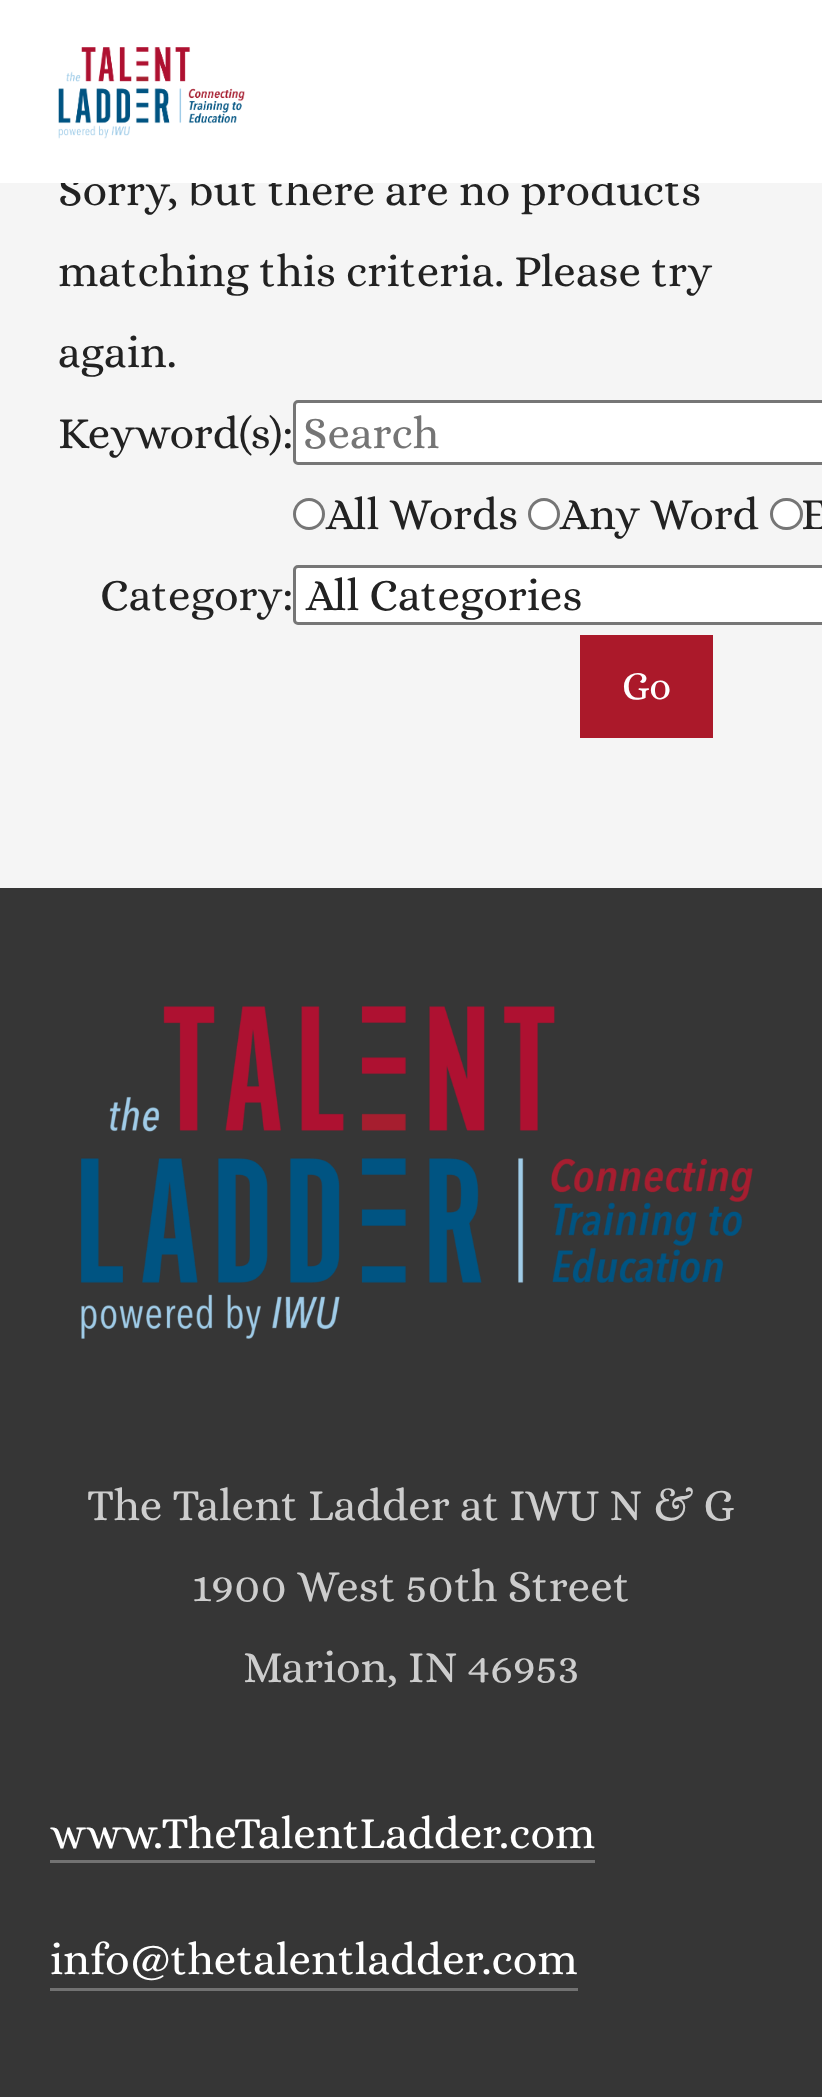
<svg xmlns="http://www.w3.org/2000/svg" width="822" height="2097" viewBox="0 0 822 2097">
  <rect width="100%" height="100%" fill="rgb(54,54,54)"/>
  <rect x="0" y="183" width="822" height="705" fill="rgb(245,245,245)"/>
  <text x="58" y="205" font-family="Alice" font-size="45" fill="rgb(34,34,34)">Sorry, but there are no products</text>
  <rect x="0" y="0" width="822" height="183" fill="rgb(255,255,255)"/>
  <image x="58" y="47" width="187" height="92" href="pic1.png"/>
  <g font-family="Alice" font-size="45" fill="rgb(34,34,34)">
    <text>
      <tspan x="58" y="286">matching this criteria. Please try</tspan>
      <tspan x="58" y="367">again.</tspan>
      <tspan x="58" y="448">Keyword(s):</tspan>
    </text>
  </g>
  <rect x="294.5" y="401.5" width="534" height="62" rx="3.5" fill="rgb(255,255,255)" stroke="rgb(118,118,118)" stroke-width="3"/>
  <text x="303" y="448" font-family="Alice" font-size="45" fill="rgb(117,117,117)">Search</text>
  <circle cx="309" cy="514" r="14.5" fill="rgb(255,255,255)" stroke="rgb(118,118,118)" stroke-width="3"/>
  <text x="326" y="529" font-family="Alice" font-size="45" fill="rgb(34,34,34)">All Words</text>
  <circle cx="544" cy="514" r="14.5" fill="rgb(255,255,255)" stroke="rgb(118,118,118)" stroke-width="3"/>
  <text x="560" y="529" font-family="Alice" font-size="45" fill="rgb(34,34,34)">Any Word</text>
  <rect x="771.5" y="499.5" width="30" height="29" rx="14.5" fill="rgb(255,255,255)" stroke="rgb(118,118,118)" stroke-width="3"/>
  <g font-family="Alice" font-size="45" fill="rgb(34,34,34)">
    <text x="801" y="529">E</text>
    <text x="100" y="610">Category:</text>
  </g>
  <rect x="294.5" y="566.5" width="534" height="57" rx="3.5" fill="rgb(255,255,255)" stroke="rgb(118,118,118)" stroke-width="3"/>
  <text x="306" y="610" font-family="Alice" font-size="45" fill="rgb(34,34,34)">All Categories</text>
  <rect x="580" y="635" width="133" height="103" fill="rgb(171,25,42)"/>
  <text x="622" y="699" font-family="Alice" font-size="40" fill="rgb(255,255,255)">Go</text>
  <image x="81" y="1006" width="672" height="333" href="pic2.png"/>
  <g font-family="Alice" font-size="45" fill="rgb(205,205,205)">
    <text x="87" y="1520">The Talent Ladder at IWU N &amp; G</text>
    <text x="192" y="1601">1900 West 50th Street</text>
    <text x="243" y="1682">Marion, IN 46953</text>
  </g>
  <text x="50" y="1848" font-family="Alice" font-size="45" fill="rgb(255,255,255)">www.TheTalentLadder.com</text>
  <rect x="50" y="1860" width="545" height="3" fill="rgb(114,114,114)"/>
  <text x="50" y="1974" font-family="Alice" font-size="45" fill="rgb(255,255,255)">info@thetalentladder.com</text>
  <rect x="50" y="1988" width="528" height="3" fill="rgb(114,114,114)"/>
</svg>
